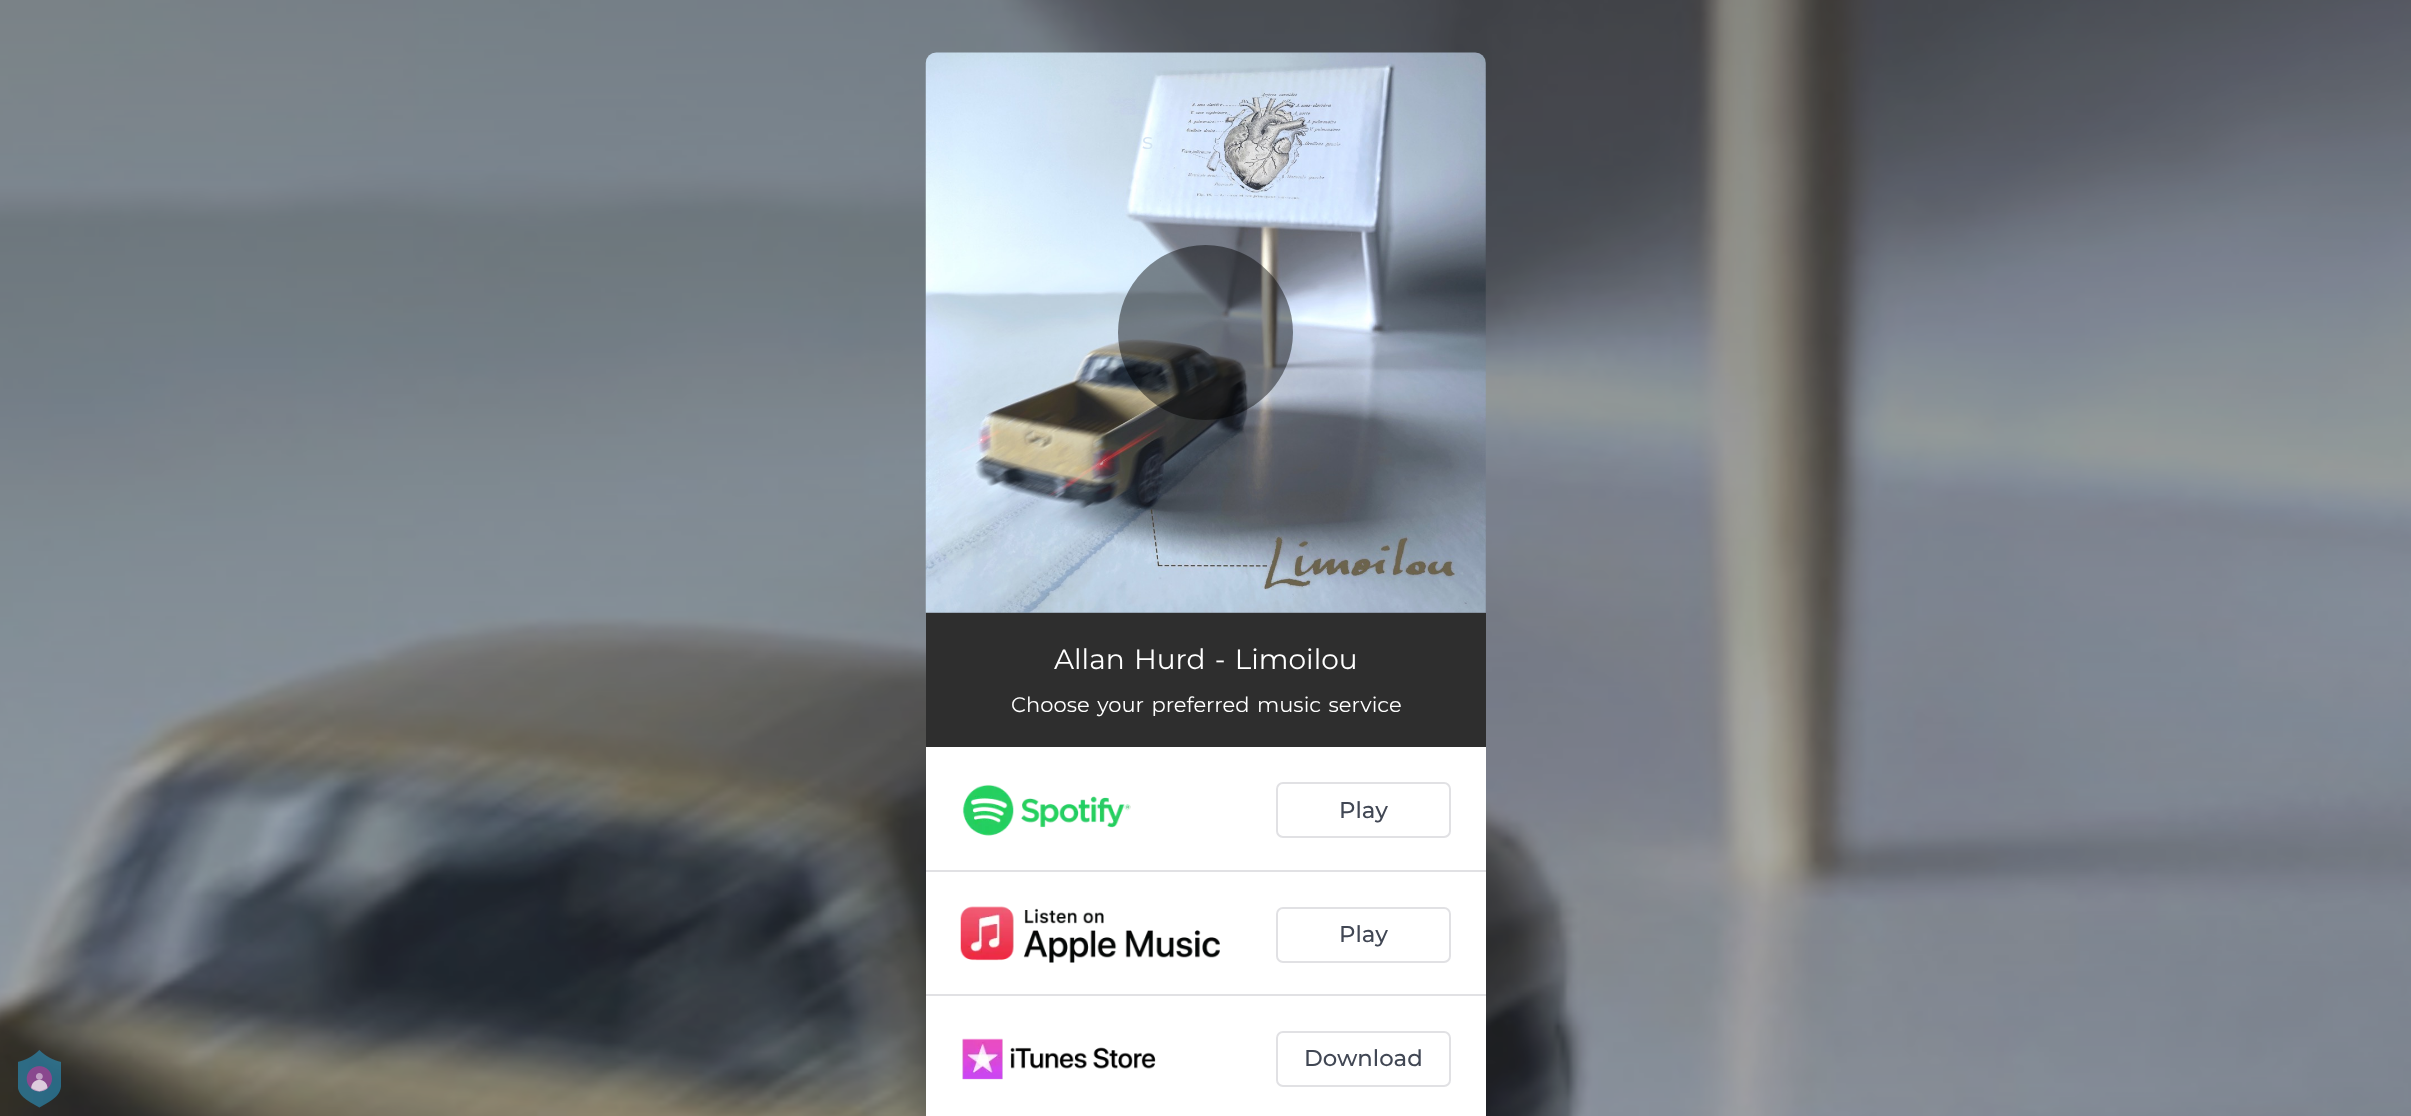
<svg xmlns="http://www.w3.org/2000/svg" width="2411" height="1116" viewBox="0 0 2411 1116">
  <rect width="100%" height="100%" fill="rgb(255,255,255)"/>
  <image x="0" y="0" width="2411" height="1116" href="pic1.png"/>
  <image x="925" y="52" width="561" height="561" href="pic2.png"/>
  <circle cx="1205.5" cy="332.5" r="87.5" fill="rgba(0,0,0,0.45)"/>
  <text x="1142" y="149" word-spacing="2" font-family="Montserrat" font-size="22.75" fill="rgb(211,228,244)">s</text>
  <rect x="926" y="613" width="560" height="134" fill="rgb(46,46,46)"/>
  <text x="1054" y="669" word-spacing="2" font-family="Montserrat" font-size="28" fill="rgb(255,255,255)">Allan Hurd - Limoilou</text>
  <text x="1011" y="712" word-spacing="2" font-family="Montserrat" font-size="21" fill="rgb(255,255,255)">Choose your preferred music service</text>
  <rect x="926" y="747" width="560" height="369" fill="rgb(255,255,255)"/>
  <rect x="926" y="870" width="560" height="2" fill="rgb(225,225,228)"/>
  <image x="962" y="784" width="169" height="52" href="pic3.png"/>
  <rect x="1277" y="783" width="173" height="54" rx="6" fill="none" stroke="rgb(225,225,228)" stroke-width="2"/>
  <text x="1339" y="818" font-family="Montserrat" font-size="22.75" font-weight="500" fill="rgb(65,71,84)">Play</text>
  <rect x="926" y="994" width="560" height="2" fill="rgb(225,225,228)"/>
  <image x="960" y="906" width="260" height="57" href="pic4.png"/>
  <rect x="1277" y="908" width="173" height="54" rx="6" fill="none" stroke="rgb(225,225,228)" stroke-width="2"/>
  <text x="1339" y="942" font-family="Montserrat" font-size="22.75" font-weight="500" fill="rgb(65,71,84)">Play</text>
  <image x="962" y="1038" width="194" height="42" href="pic5.png"/>
  <rect x="1277" y="1032" width="173" height="54" rx="6" fill="none" stroke="rgb(225,225,228)" stroke-width="2"/>
  <text x="1304" y="1066" font-family="Montserrat" font-size="22.75" font-weight="500" fill="rgb(65,71,84)">Download</text>
  <image x="18" y="1050" width="43" height="58" href="pic6.png"/>
</svg>
